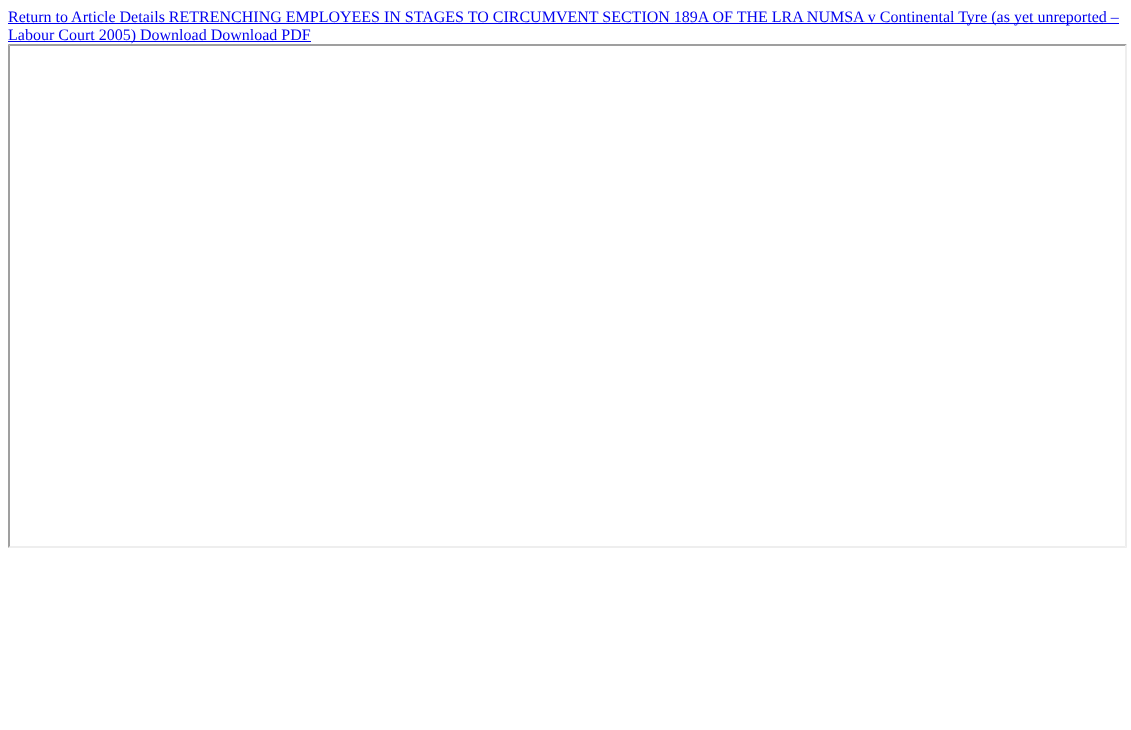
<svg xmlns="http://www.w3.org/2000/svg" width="1131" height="730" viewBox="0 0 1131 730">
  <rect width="100%" height="100%" fill="rgb(255,255,255)"/>
  <rect x="8" y="23" width="1111" height="1" fill="rgb(0,0,238)"/>
  <text x="8" y="22" font-family="Liberation Serif" font-size="16" fill="rgb(0,0,238)">Return to Article Details RETRENCHING EMPLOYEES IN STAGES TO CIRCUMVENT SECTION 189A OF THE LRA NUMSA v Continental Tyre (as yet unreported –</text>
  <rect x="8" y="41" width="303" height="1" fill="rgb(0,0,238)"/>
  <text x="8" y="40" font-family="Liberation Serif" font-size="16" fill="rgb(0,0,238)">Labour Court 2005) Download Download PDF</text>
  <path d="M8 44H1127L1125 46H10Z" fill="rgb(159,159,159)"/>
  <path d="M1127 44V548L1125 546V46Z" fill="rgb(238,238,238)"/>
  <path d="M1127 548H8L10 546H1125Z" fill="rgb(238,238,238)"/>
  <path d="M8 548V44L10 46V546Z" fill="rgb(159,159,159)"/>
</svg>
